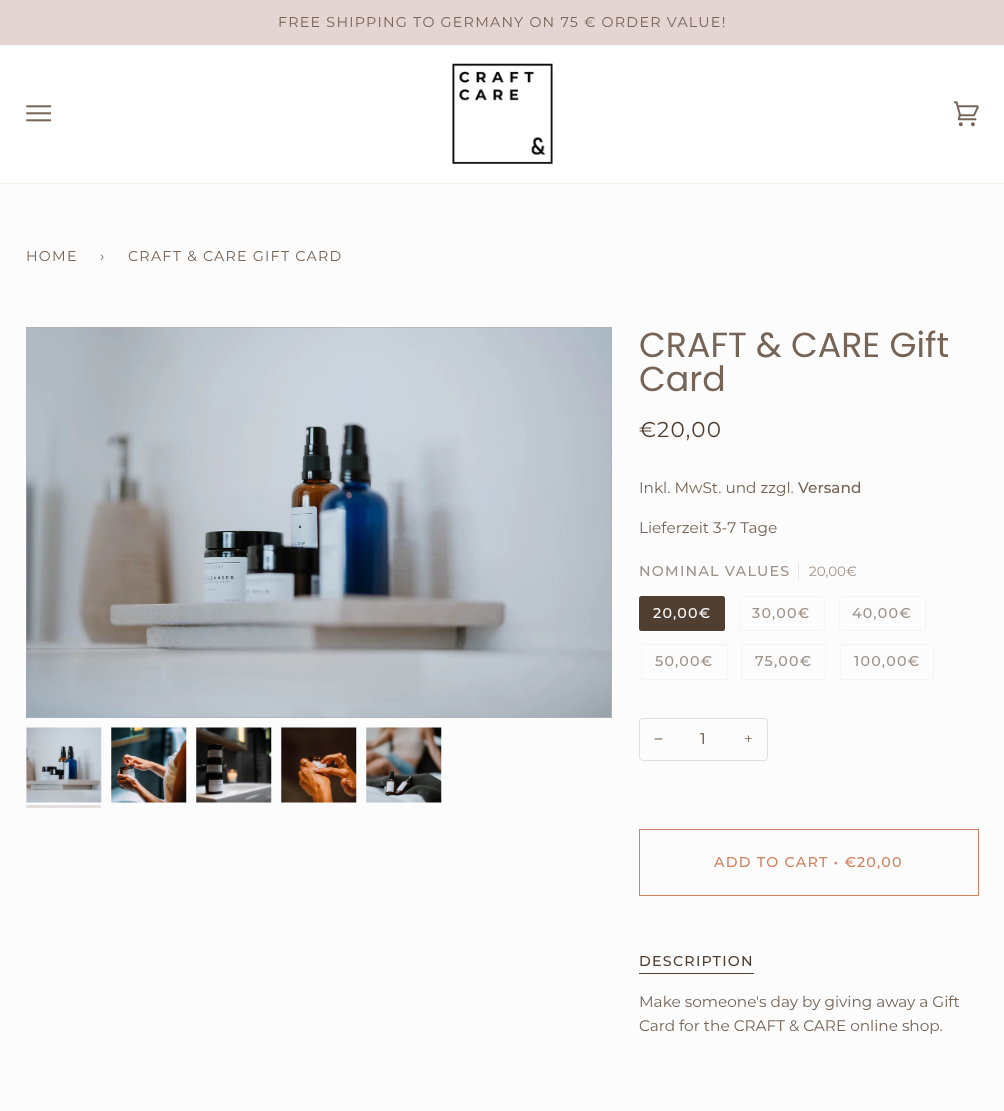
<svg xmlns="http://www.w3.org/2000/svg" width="1004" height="1111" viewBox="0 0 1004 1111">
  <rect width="100%" height="100%" fill="rgb(252,252,252)"/>
  <rect x="0" y="0" width="1004" height="45" fill="rgb(228,213,211)"/>
  <text x="278" y="27" font-family="Montserrat" font-size="14.25" letter-spacing="1.25" fill="rgb(118,100,86)">FREE SHIPPING TO GERMANY ON 75 € ORDER VALUE!</text>
  <rect x="0" y="45" width="1004" height="138" fill="rgb(255,255,255)"/>
  <rect x="0" y="183" width="1004" height="1" fill="rgb(248,240,231)"/>
  <image x="26" y="105" width="25" height="17" href="pic1.png"/>
  <image x="452" y="63" width="101" height="101" href="pic2.png"/>
  <image x="954" y="101" width="25" height="26" href="pic3.png"/>
  <g font-family="Montserrat" font-size="14.25" letter-spacing="1.25" fill="rgb(118,100,86)">
    <text x="26" y="261">HOME</text>
    <text x="100" y="261">›</text>
    <text x="128" y="261">CRAFT &amp; CARE GIFT CARD</text>
  </g>
  <rect x="26" y="327" width="586" height="391" fill="rgb(172,178,185)"/>
  <image x="26" y="327" width="585" height="391" href="pic4.png"/>
  <image x="26" y="727" width="76" height="76" href="pic5.png"/>
  <rect x="26" y="805" width="75" height="3" fill="rgb(225,222,219)"/>
  <image x="111" y="727" width="76" height="76" href="pic6.png"/>
  <image x="196" y="727" width="76" height="76" href="pic7.png"/>
  <image x="281" y="727" width="76" height="76" href="pic8.png"/>
  <image x="366" y="727" width="76" height="76" href="pic9.png"/>
  <g font-family="Poppins" font-size="34.75" fill="rgb(118,100,86)">
    <text>
      <tspan x="639" y="357">CRAFT &amp; CARE Gift</tspan>
      <tspan x="639" y="391">Card</tspan>
    </text>
  </g>
  <text x="639" y="437" font-family="Montserrat" font-size="21.5" letter-spacing="1.25" fill="rgb(80,62,48)">€20,00</text>
  <text x="639" y="493" font-family="Montserrat" font-size="15.3" fill="rgb(118,100,86)">Inkl. MwSt. und zzgl.</text>
  <text x="798" y="493" font-family="Montserrat" font-size="15.3" font-weight="500" fill="rgb(118,100,86)">Versand</text>
  <text x="639" y="533" font-family="Montserrat" font-size="15.3" fill="rgb(118,100,86)">Lieferzeit 3-7 Tage</text>
  <text x="639" y="576" font-family="Montserrat" font-size="14.25" font-weight="500" letter-spacing="1.25" fill="rgb(158,146,136)">NOMINAL VALUES</text>
  <rect x="798" y="563" width="1" height="17" fill="rgb(233,231,229)"/>
  <text x="809" y="576" font-family="Montserrat" font-size="13.5" fill="rgb(158,146,136)">20,00€</text>
  <rect x="639" y="596" width="86" height="35" rx="2.5" fill="rgb(80,62,48)"/>
  <text x="653" y="618" font-family="Montserrat" font-size="14.25" font-weight="500" letter-spacing="1.25" fill="rgb(252,252,252)">20,00€</text>
  <rect x="739.5" y="596.5" width="85" height="34" rx="2" fill="none" stroke="rgb(245,244,244)"/>
  <text x="752" y="618" font-family="Montserrat" font-size="14.25" font-weight="500" letter-spacing="1.25" fill="rgb(158,146,136)">30,00€</text>
  <rect x="839.5" y="596.5" width="86" height="34" rx="2" fill="none" stroke="rgb(245,244,244)"/>
  <text x="852" y="618" font-family="Montserrat" font-size="14.25" font-weight="500" letter-spacing="1.25" fill="rgb(158,146,136)">40,00€</text>
  <rect x="641.5" y="644.5" width="86" height="35" rx="2" fill="none" stroke="rgb(245,244,244)"/>
  <text x="655" y="666" font-family="Montserrat" font-size="14.25" font-weight="500" letter-spacing="1.25" fill="rgb(158,146,136)">50,00€</text>
  <rect x="741.5" y="644.5" width="84" height="35" rx="2" fill="none" stroke="rgb(245,244,244)"/>
  <text x="755" y="666" font-family="Montserrat" font-size="14.25" font-weight="500" letter-spacing="1.25" fill="rgb(158,146,136)">75,00€</text>
  <rect x="840.5" y="644.5" width="93" height="35" rx="2" fill="none" stroke="rgb(245,244,244)"/>
  <text x="854" y="666" font-family="Montserrat" font-size="14.25" font-weight="500" letter-spacing="1.25" fill="rgb(158,146,136)">100,00€</text>
  <rect x="639.5" y="718.5" width="128" height="42" rx="3.5" fill="none" stroke="rgb(225,222,219)"/>
  <text x="654" y="744" font-family="Liberation Sans" font-size="15.3" fill="rgb(118,100,86)">−</text>
  <text x="700" y="744" font-family="Montserrat" font-size="15.3" fill="rgb(80,62,48)">1</text>
  <text x="744" y="744" font-family="Montserrat" font-size="15.3" fill="rgb(118,100,86)">+</text>
  <rect x="639.5" y="829.5" width="339" height="66" fill="none" stroke="rgb(210,129,95)"/>
  <text x="714" y="867" font-family="Montserrat" font-size="14.25" font-weight="500" letter-spacing="1.25" fill="rgb(210,129,95)">ADD TO CART • €20,00</text>
  <rect x="639" y="973" width="115" height="1" fill="rgb(80,62,48)"/>
  <text x="639" y="966" font-family="Montserrat" font-size="14.25" font-weight="500" letter-spacing="1.25" fill="rgb(80,62,48)">DESCRIPTION</text>
  <g font-family="Montserrat" font-size="15.3" fill="rgb(118,100,86)">
    <text>
      <tspan x="639" y="1007">Make someone's day by giving away a Gift</tspan>
      <tspan x="639" y="1031">Card for the CRAFT &amp; CARE online shop.</tspan>
    </text>
  </g>
</svg>
